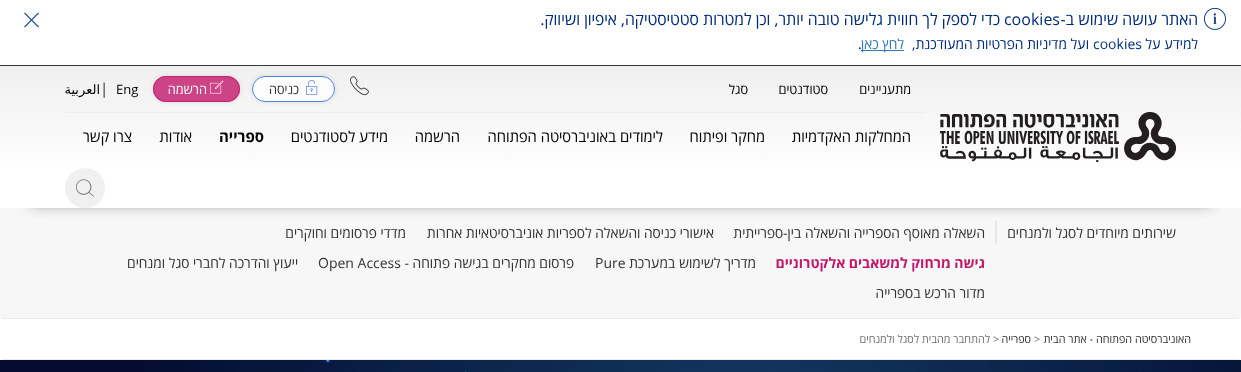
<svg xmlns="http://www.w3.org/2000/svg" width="1241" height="372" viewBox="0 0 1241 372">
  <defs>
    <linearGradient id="g1" gradientUnits="userSpaceOnUse" x1="621" y1="66" x2="621" y2="208"><stop offset="0" stop-color="rgb(240,240,240)"/><stop offset="0.8" stop-color="rgb(255,255,255)"/><stop offset="1" stop-color="rgb(255,255,255)"/></linearGradient>
    <clipPath id="clip1"><rect x="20" y="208" width="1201" height="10"/></clipPath>
    <clipPath id="clip2"><path d="M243 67H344V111H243ZM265 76H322C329 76 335 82 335 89C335 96 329 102 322 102H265C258 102 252 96 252 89C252 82 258 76 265 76Z" clip-rule="evenodd"/></clipPath>
    <clipPath id="clip3"><path d="M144 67H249V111H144ZM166 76H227C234 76 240 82 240 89C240 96 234 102 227 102H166C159 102 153 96 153 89C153 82 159 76 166 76Z" clip-rule="evenodd"/></clipPath>
  </defs>
  <rect width="100%" height="100%" fill="rgb(255,255,255)"/>
  <image x="1204" y="7" width="22" height="23" href="pic1.png"/>
  <text x="1198" y="25" font-family="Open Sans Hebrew" font-size="16" direction="rtl" fill="rgb(0,44,125)">האתר עושה שימוש ב-</text>
  <text x="1004" y="25" font-family="Open Sans Hebrew" font-size="16" fill="rgb(0,44,125)">cookies</text>
  <text x="1000" y="25" font-family="Open Sans Hebrew" font-size="16" direction="rtl" fill="rgb(0,44,125)">כדי לספק לך חווית גלישה טובה יותר, וכן למטרות סטטיסטיקה, איפיון ושיווק.</text>
  <rect x="0" y="65" width="1241" height="1" fill="rgb(53,53,53)"/>
  <image x="24" y="12" width="15" height="16" href="pic2.png"/>
  <text x="1198" y="49" font-family="Open Sans Hebrew" font-size="14" direction="rtl" fill="rgb(0,44,125)">למידע על</text>
  <text x="1093" y="49" font-family="Open Sans Hebrew" font-size="14" fill="rgb(0,44,125)">cookies</text>
  <text x="1089" y="49" font-family="Open Sans Hebrew" font-size="14" direction="rtl" fill="rgb(0,44,125)">ועל מדיניות הפרטיות המעודכנת,</text>
  <rect x="861" y="50" width="43" height="1" fill="rgb(51,122,183)"/>
  <text x="904" y="49" font-family="Open Sans Hebrew" font-size="14" direction="rtl" fill="rgb(51,122,183)">לחץ כאן</text>
  <text x="858" y="49" font-family="Open Sans Hebrew" font-size="14" fill="rgb(0,44,125)">.</text>
  <rect x="0" y="66" width="1241" height="95" fill="url(#g1)"/>
  <rect x="0" y="208" width="1241" height="110" fill="rgb(247,247,247)"/>
  <rect x="995" y="221" width="2" height="23" fill="rgb(232,232,232)"/>
  <g clip-path="url(#clip1)">
    <rect x="30" y="91" width="1181" height="112" fill="rgb(119,119,119)" filter="blur(7.5px)"/>
  </g>
  <g font-family="Open Sans Hebrew" font-size="13" direction="rtl" fill="rgb(2,2,2)">
    <text x="911" y="94">מתעניינים</text>
    <text x="828" y="94">סטודנטים</text>
    <text x="748" y="94">סגל</text>
  </g>
  <image x="350" y="76" width="19" height="20" href="pic3.png"/>
  <g clip-path="url(#clip2)">
    <rect x="252" y="76" width="83" height="26" rx="13" fill="rgba(0,0,0,0.1)" filter="blur(2.5px)"/>
  </g>
  <rect x="252" y="76" width="83" height="26" rx="13" fill="rgba(255,255,255,0.8)"/>
  <rect x="252.5" y="76.5" width="82" height="25" rx="12.5" fill="none" stroke="rgba(35,99,219,0.8)"/>
  <image x="306" y="80" width="12" height="15" href="pic4.png"/>
  <text x="299" y="94" font-family="Open Sans Hebrew" font-size="13" direction="rtl" fill="rgb(51,51,51)">כניסה</text>
  <g clip-path="url(#clip3)">
    <rect x="153" y="76" width="87" height="26" rx="13" fill="rgba(0,0,0,0.1)" filter="blur(2.5px)"/>
  </g>
  <rect x="153" y="76" width="87" height="26" rx="13" fill="rgba(194,23,106,0.8)"/>
  <rect x="153.5" y="76.5" width="86" height="25" rx="12.5" fill="none" stroke="rgba(194,23,106,0.8)"/>
  <image x="210" y="80" width="14" height="14" href="pic5.png"/>
  <text x="207" y="94" font-family="Open Sans Hebrew" font-size="13" direction="rtl" fill="rgb(255,255,255)">הרשמה</text>
  <text x="116" y="94" font-family="Open Sans Hebrew" font-size="13" fill="rgb(2,2,2)">Eng</text>
  <text x="100" y="94" font-family="Open Sans Hebrew" font-size="15" fill="rgb(51,51,51)">|</text>
  <text x="100" y="94" font-family="DejaVu Sans" font-size="13" direction="rtl" fill="rgb(2,2,2)">العربية</text>
  <image x="940" y="112" width="236" height="50" href="pic6.png"/>
  <rect x="65" y="112" width="860" height="1" fill="rgb(238,238,238)"/>
  <g font-family="Open Sans Hebrew" font-size="15" direction="rtl" fill="rgb(2,2,2)">
    <text x="911" y="142">המחלקות האקדמיות</text>
    <text x="765" y="142">מחקר ופיתוח</text>
    <text x="663" y="142">לימודים באוניברסיטה הפתוחה</text>
    <text x="460" y="142">הרשמה</text>
    <text x="388" y="142">מידע לסטודנטים</text>
  </g>
  <text x="264" y="142" font-family="Open Sans Hebrew" font-size="15" font-weight="bold" direction="rtl" fill="rgb(2,2,2)">ספרייה</text>
  <g font-family="Open Sans Hebrew" font-size="15" direction="rtl" fill="rgb(2,2,2)">
    <text x="192" y="142">אודות</text>
    <text x="132" y="142">צרו קשר</text>
  </g>
  <g font-family="Open Sans Hebrew" font-size="14" direction="rtl" fill="rgb(51,51,51)">
    <text x="1176" y="238">שירותים מיוחדים לסגל ולמנחים</text>
    <text x="985" y="238">השאלה מאוסף הספרייה והשאלה בין-ספרייתית</text>
    <text x="714" y="238">אישורי כניסה והשאלה לספריות אוניברסיטאיות אחרות</text>
    <text x="406" y="238">מדדי פרסומים וחוקרים</text>
  </g>
  <text x="985" y="268" font-family="Open Sans Hebrew" font-size="14" font-weight="bold" direction="rtl" fill="rgb(194,23,106)">גישה מרחוק למשאבים אלקטרוניים</text>
  <text x="756" y="268" font-family="Open Sans Hebrew" font-size="14" direction="rtl" fill="rgb(51,51,51)">מדריך לשימוש במערכת</text>
  <text x="595" y="268" font-family="Open Sans Hebrew" font-size="14" fill="rgb(51,51,51)">Pure</text>
  <text x="574" y="268" font-family="Open Sans Hebrew" font-size="14" direction="rtl" fill="rgb(51,51,51)">פרסום מחקרים בגישה פתוחה -</text>
  <text x="318" y="268" font-family="Open Sans Hebrew" font-size="14" fill="rgb(51,51,51)">Open Access</text>
  <g font-family="Open Sans Hebrew" font-size="14" direction="rtl" fill="rgb(51,51,51)">
    <text x="298" y="268">ייעוץ והדרכה לחברי סגל ומנחים</text>
    <text x="985" y="298">מדור הרכש בספרייה</text>
  </g>
  <circle cx="85" cy="188" r="20" fill="rgb(240,240,240)"/>
  <image x="76" y="179" width="18" height="18" href="pic7.png"/>
  <rect x="2" y="318" width="1237" height="1" fill="rgb(235,235,235)"/>
  <rect x="2" y="359" width="1237" height="1" fill="rgb(235,235,235)"/>
  <text x="1191" y="343" font-family="Open Sans Hebrew" font-size="11" direction="rtl" fill="rgb(51,51,51)">האוניברסיטה הפתוחה - אתר הבית</text>
  <text x="1034" y="343" font-family="Open Sans Hebrew" font-size="11" fill="rgb(114,114,114)">&gt;</text>
  <text x="1031" y="343" font-family="Open Sans Hebrew" font-size="11" direction="rtl" fill="rgb(51,51,51)">ספרייה</text>
  <text x="993" y="343" font-family="Open Sans Hebrew" font-size="11" fill="rgb(114,114,114)">&gt;</text>
  <text x="990" y="343" font-family="Open Sans Hebrew" font-size="11" direction="rtl" fill="rgb(114,114,114)">להתחבר מהבית לסגל ולמנחים</text>
  <image x="0" y="360" width="1241" height="12" href="pic8.png"/>
</svg>
